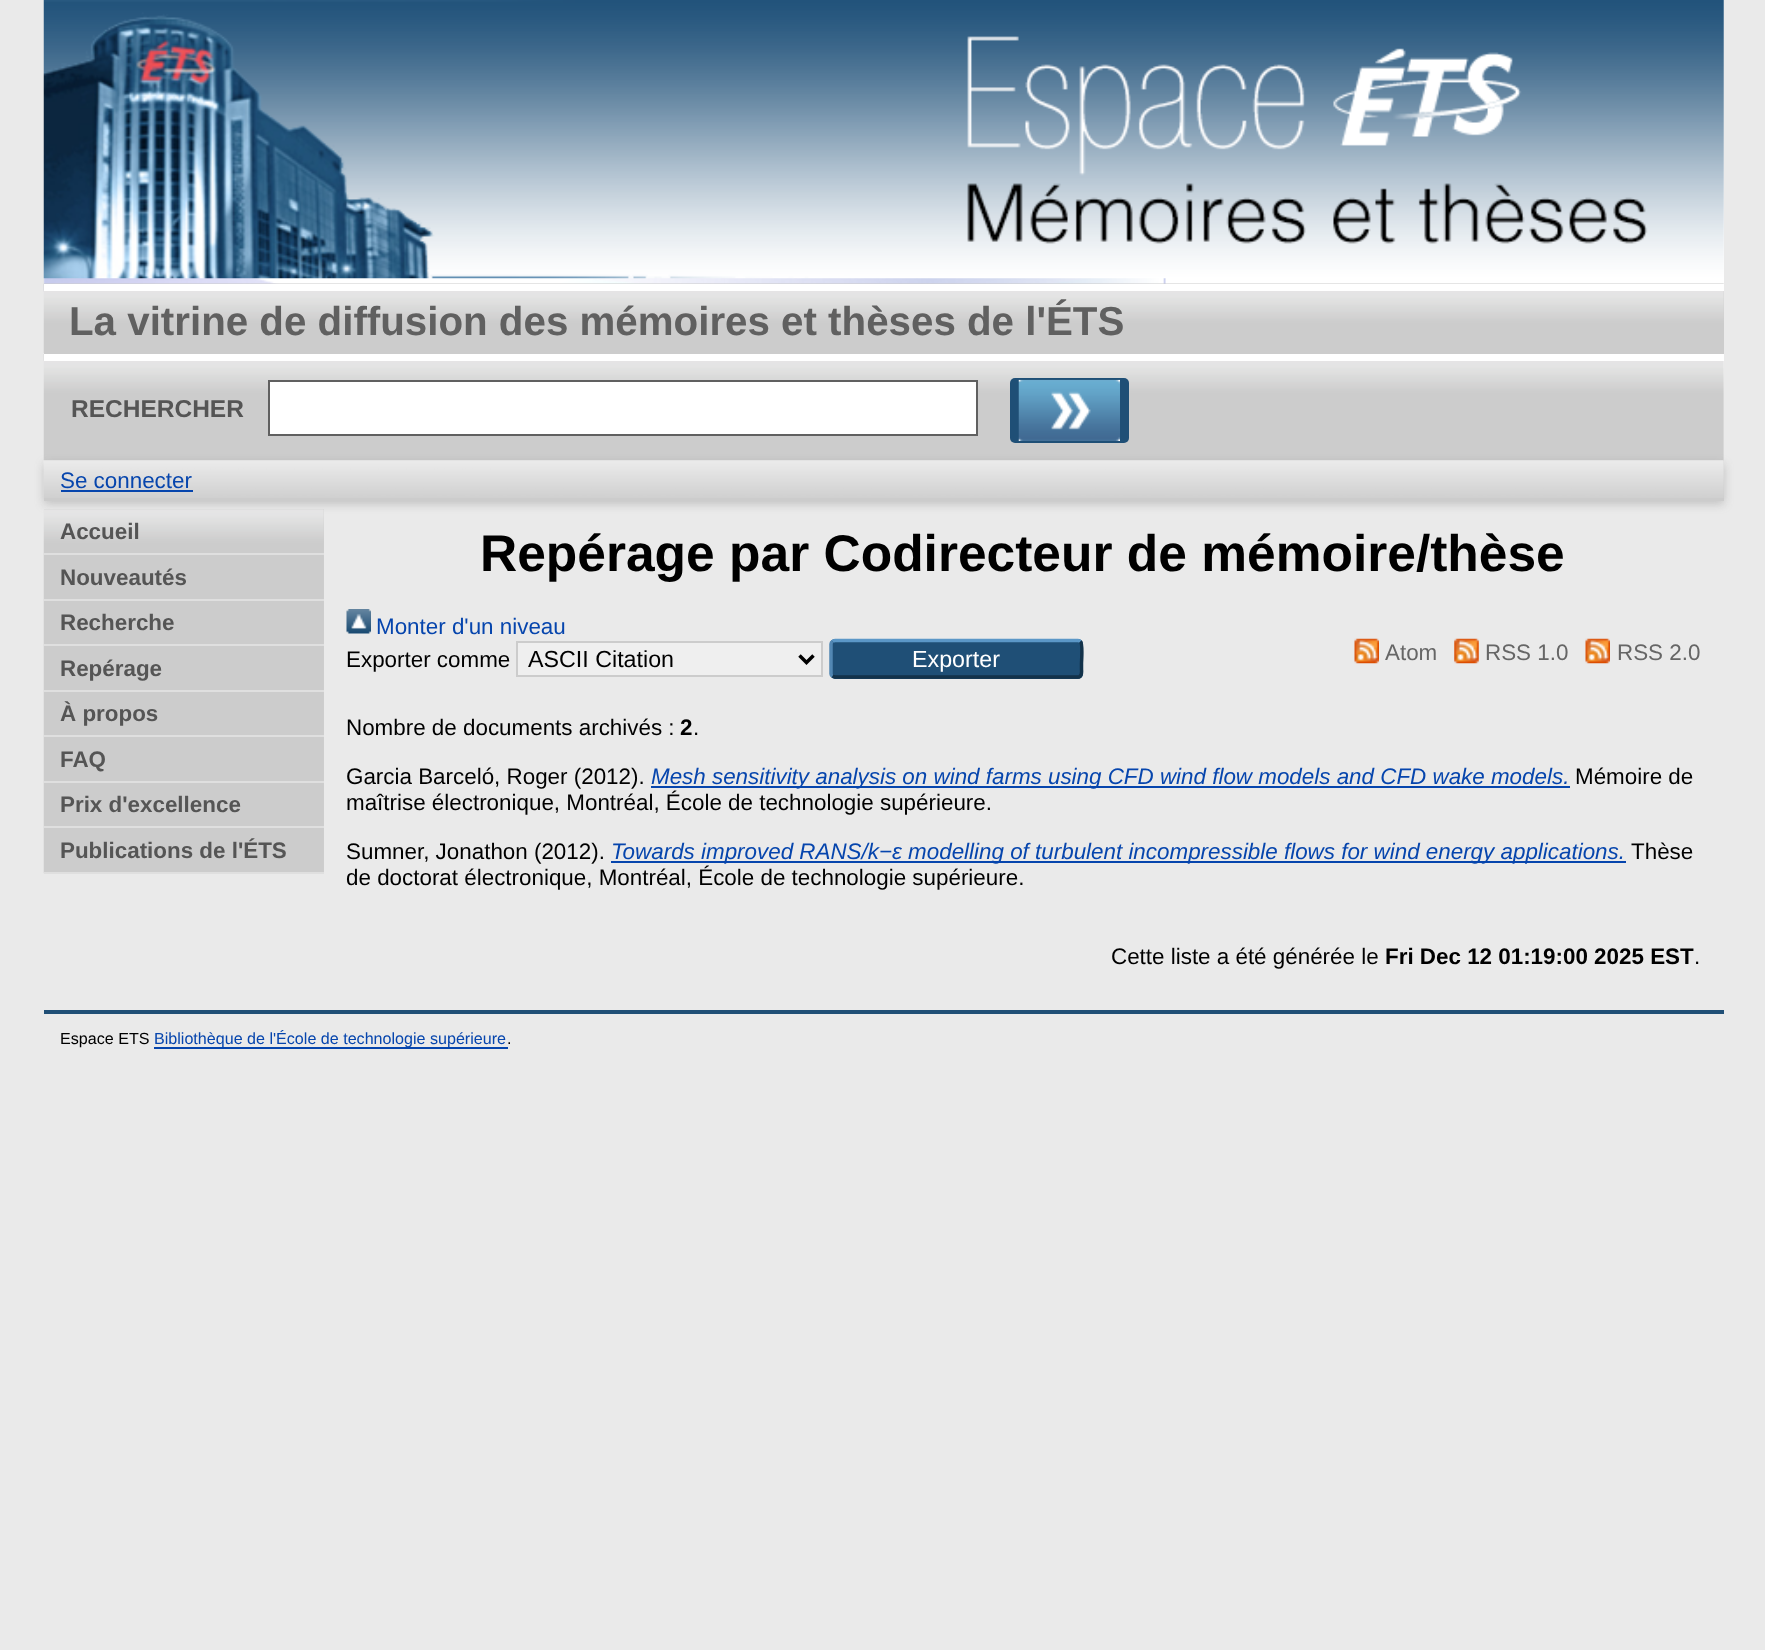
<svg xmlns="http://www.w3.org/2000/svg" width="1765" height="1650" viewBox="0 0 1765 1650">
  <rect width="100%" height="100%" fill="rgb(234,234,234)"/>
  <rect x="44" y="0" width="1680" height="460" fill="rgb(255,255,255)"/>
  <image x="43" y="252" width="1123" height="40" href="pic1.png"/>
  <image x="43" y="0" width="1681" height="279" href="pic2.png"/>
  <rect x="44" y="291" width="1680" height="63" fill="rgb(204,204,204)"/>
  <image x="43" y="283" width="1681" height="70" href="pic3.png"/>
  <rect x="44" y="284" width="1680" height="7" fill="rgb(255,255,255)"/>
  <text x="69" y="335" font-family="Liberation Sans" font-size="40.3" font-weight="bold" fill="rgb(96,96,96)">La vitrine de diffusion des mémoires et thèses de l'ÉTS</text>
  <image x="43" y="354" width="1681" height="107" href="pic4.png"/>
  <rect x="44" y="354" width="1680" height="7" fill="rgb(255,255,255)"/>
  <text x="71" y="417" font-family="Liberation Sans" font-size="24.5" font-weight="bold" fill="rgb(85,85,85)">RECHERCHER</text>
  <rect x="269" y="381" width="708" height="54" fill="rgb(255,255,255)" stroke="rgb(96,96,96)" stroke-width="2"/>
  <rect x="1010" y="378" width="119" height="65" rx="5" fill="rgb(31,79,118)"/>
  <image x="1018" y="379" width="102" height="62" href="pic5.png"/>
  <rect x="44" y="464" width="1680" height="40" fill="rgba(100,100,100,0.3)" filter="blur(5px)"/>
  <rect x="44" y="460" width="1680" height="41" fill="rgb(204,204,204)"/>
  <image x="43" y="460" width="1681" height="38" href="pic6.png"/>
  <text x="60" y="488" font-family="Liberation Sans" font-size="22.4" fill="rgb(6,69,173)">Se connecter</text>
  <rect x="61" y="490" width="132" height="2" fill="rgb(6,69,173)"/>
  <rect x="44" y="509" width="280" height="363" fill="rgb(204,204,204)"/>
  <image x="43" y="509" width="281" height="365" href="pic7.png"/>
  <rect x="44" y="553" width="280" height="2" fill="rgb(223,223,223)"/>
  <text x="60" y="539" font-family="Liberation Sans" font-size="22.4" font-weight="bold" fill="rgb(85,85,85)">Accueil</text>
  <rect x="44" y="599" width="280" height="2" fill="rgb(223,223,223)"/>
  <text x="60" y="585" font-family="Liberation Sans" font-size="22.4" font-weight="bold" fill="rgb(85,85,85)">Nouveautés</text>
  <rect x="44" y="644" width="280" height="2" fill="rgb(223,223,223)"/>
  <text x="60" y="630" font-family="Liberation Sans" font-size="22.4" font-weight="bold" fill="rgb(85,85,85)">Recherche</text>
  <rect x="44" y="690" width="280" height="2" fill="rgb(223,223,223)"/>
  <text x="60" y="676" font-family="Liberation Sans" font-size="22.4" font-weight="bold" fill="rgb(85,85,85)">Repérage</text>
  <rect x="44" y="735" width="280" height="2" fill="rgb(223,223,223)"/>
  <text x="60" y="721" font-family="Liberation Sans" font-size="22.4" font-weight="bold" fill="rgb(85,85,85)">À propos</text>
  <rect x="44" y="781" width="280" height="2" fill="rgb(223,223,223)"/>
  <text x="60" y="767" font-family="Liberation Sans" font-size="22.4" font-weight="bold" fill="rgb(85,85,85)">FAQ</text>
  <rect x="44" y="826" width="280" height="2" fill="rgb(223,223,223)"/>
  <text x="60" y="812" font-family="Liberation Sans" font-size="22.4" font-weight="bold" fill="rgb(85,85,85)">Prix d'excellence</text>
  <rect x="44" y="872" width="280" height="2" fill="rgb(223,223,223)"/>
  <text x="60" y="858" font-family="Liberation Sans" font-size="22.4" font-weight="bold" fill="rgb(85,85,85)">Publications de l'ÉTS</text>
  <text x="480" y="571" font-family="Liberation Sans" font-size="51.5" font-weight="bold" fill="rgb(0,0,0)">Repérage par Codirecteur de mémoire/thèse</text>
  <image x="346" y="609" width="25" height="25" href="pic8.png"/>
  <text x="376" y="634" font-family="Liberation Sans" font-size="22.4" fill="rgb(6,69,173)">Monter d'un niveau</text>
  <text x="346" y="667" font-family="Liberation Sans" font-size="22.4" fill="rgb(0,0,0)">Exporter comme</text>
  <rect x="517" y="642" width="305" height="34" fill="rgb(239,239,239)" stroke="rgb(204,204,204)" stroke-width="2"/>
  <path d="M799.5 655.5L806.5 662.5L813.5 655.5" fill="none" stroke="rgb(0,0,0)" stroke-width="3.5"/>
  <text x="528" y="667" font-family="Liberation Sans" font-size="23.25" fill="rgb(0,0,0)">ASCII Citation</text>
  <rect x="830" y="639" width="253" height="40" rx="5" fill="rgb(31,79,118)"/>
  <path d="M832.5 641.5C833 641 834 640.5 835 640.5H1078C1079 640.5 1080 641 1080.5 641.5" fill="none" stroke="rgb(91,151,199)" stroke-width="3.5"/>
  <path d="M1080.5 641.5C1083 644 1081.5 660 1081.5 664V669C1081.5 671.5 1082.5 676 1079 677H835L832.5 676" fill="none" stroke="rgb(19,50,74)" stroke-width="3.5"/>
  <path d="M832.5 676C831.5 675.5 831 674.5 831 674V644C831 643 831.5 642 832.5 641.5" fill="none" stroke="rgb(82,135,179)" stroke-width="3.5"/>
  <text x="912" y="667" font-family="Liberation Sans" font-size="23.25" fill="rgb(255,255,255)">Exporter</text>
  <image x="1354" y="638" width="25" height="26" href="pic9.png"/>
  <text x="1385" y="660" font-family="Liberation Sans" font-size="22.4" fill="rgb(102,102,102)">Atom</text>
  <image x="1454" y="638" width="25" height="26" href="pic10.png"/>
  <text x="1485" y="660" font-family="Liberation Sans" font-size="22.4" fill="rgb(102,102,102)">RSS 1.0</text>
  <image x="1585" y="638" width="25" height="26" href="pic9.png"/>
  <text x="1617" y="660" font-family="Liberation Sans" font-size="22.4" fill="rgb(102,102,102)">RSS 2.0</text>
  <text x="346" y="735" font-family="Liberation Sans" font-size="22.4" fill="rgb(0,0,0)">Nombre de documents archivés :</text>
  <text x="680" y="735" font-family="Liberation Sans" font-size="22.4" font-weight="bold" fill="rgb(0,0,0)">2</text>
  <g font-family="Liberation Sans" font-size="22.4" fill="rgb(0,0,0)">
    <text x="693" y="735">.</text>
    <text x="346" y="784">Garcia Barceló, Roger (2012).</text>
  </g>
  <rect x="651" y="786" width="919" height="2" fill="rgb(6,69,173)"/>
  <text x="651" y="784" font-family="Liberation Sans" font-size="22.4" font-style="italic" fill="rgb(6,69,173)">Mesh sensitivity analysis on wind farms using CFD wind flow models and CFD wake models.</text>
  <g font-family="Liberation Sans" font-size="22.4" fill="rgb(0,0,0)">
    <text x="1575" y="784">Mémoire de</text>
    <text x="346" y="810">maîtrise électronique, Montréal, École de technologie supérieure.</text>
    <text x="346" y="859">Sumner, Jonathon (2012).</text>
  </g>
  <rect x="611" y="861" width="1015" height="2" fill="rgb(6,69,173)"/>
  <text x="611" y="859" font-family="Liberation Sans" font-size="22.4" font-style="italic" fill="rgb(6,69,173)">Towards improved RANS/k−ε modelling of turbulent incompressible flows for wind energy applications.</text>
  <g font-family="Liberation Sans" font-size="22.4" fill="rgb(0,0,0)">
    <text x="1631" y="859">Thèse</text>
    <text x="346" y="885">de doctorat électronique, Montréal, École de technologie supérieure.</text>
    <text x="1111" y="964">Cette liste a été générée le</text>
  </g>
  <text x="1385" y="964" font-family="Liberation Sans" font-size="22.4" font-weight="bold" fill="rgb(0,0,0)">Fri Dec 12 01:19:00 2025 EST</text>
  <text x="1694" y="964" font-family="Liberation Sans" font-size="22.4" fill="rgb(0,0,0)">.</text>
  <rect x="44" y="1010" width="1680" height="4" fill="rgb(32,79,118)"/>
  <text x="60" y="1044" font-family="Liberation Sans" font-size="16.1" fill="rgb(0,0,0)">Espace ETS</text>
  <rect x="154" y="1047" width="354" height="2" fill="rgb(6,69,173)"/>
  <text x="154" y="1044" font-family="Liberation Sans" font-size="16.1" fill="rgb(6,69,173)">Bibliothèque de l'École de technologie supérieure</text>
  <text x="507" y="1044" font-family="Liberation Sans" font-size="16.1" fill="rgb(0,0,0)">.</text>
</svg>
